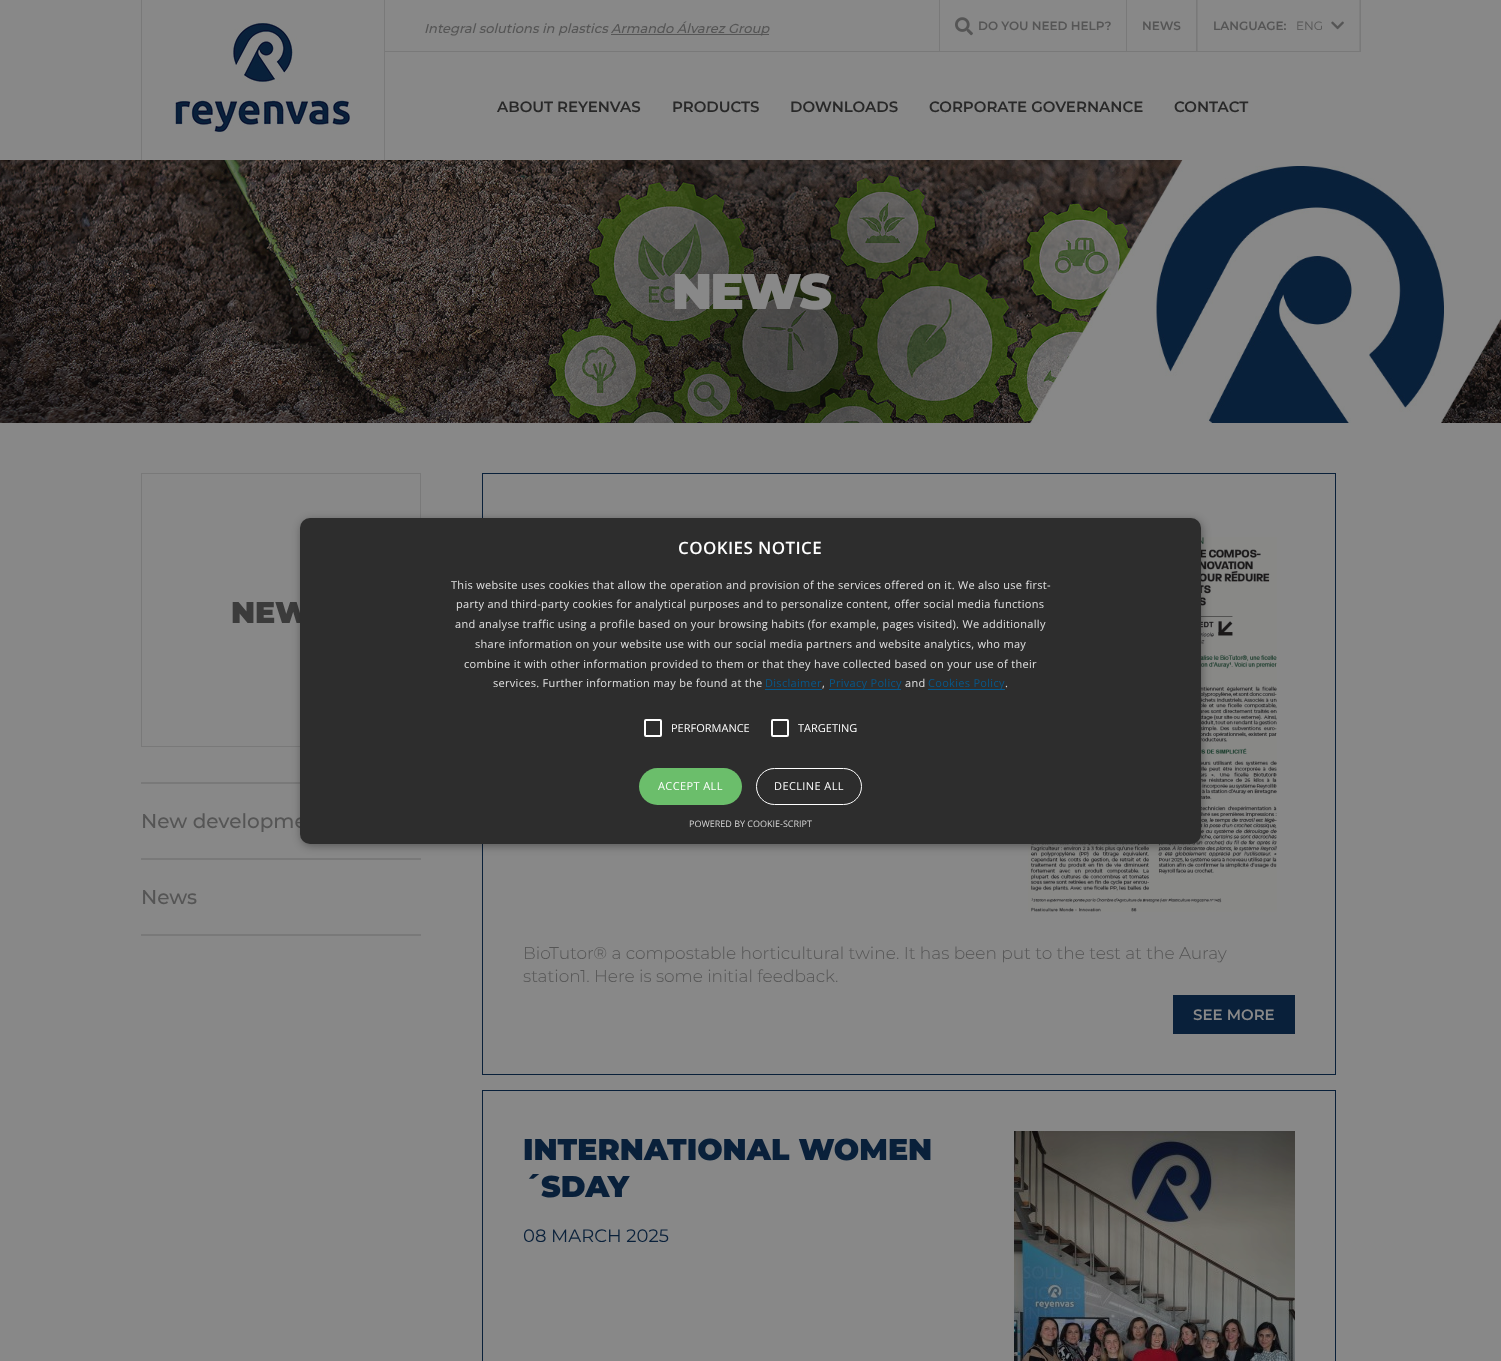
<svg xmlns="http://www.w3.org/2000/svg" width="1501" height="1361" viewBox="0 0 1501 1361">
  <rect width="100%" height="100%" fill="rgb(136,136,136)"/>
  <rect x="384" y="0" width="1" height="160" fill="rgb(121,121,121)"/>
  <rect x="141" y="0" width="1" height="160" fill="rgb(121,121,121)"/>
  <image x="175" y="23" width="175" height="109" href="pic1.png"/>
  <rect x="385" y="51" width="976" height="1" fill="rgb(121,121,121)"/>
  <text x="424" y="33" font-family="Montserrat" font-size="13" font-weight="500" font-style="italic" fill="rgb(85,85,85)">Integral solutions in plastics</text>
  <rect x="611" y="34" width="158" height="1" fill="rgb(86,86,86)"/>
  <text x="611" y="33" font-family="Montserrat" font-size="13" font-weight="500" font-style="italic" fill="rgb(85,85,85)">Armando Álvarez Group</text>
  <rect x="1126" y="0" width="1" height="51" fill="rgb(121,121,121)"/>
  <rect x="939" y="0" width="1" height="51" fill="rgb(121,121,121)"/>
  <image x="955" y="17" width="18" height="19" href="pic2.png"/>
  <text x="978" y="30" font-family="Montserrat" font-size="12" font-weight="600" fill="rgb(85,85,85)">DO YOU NEED HELP?</text>
  <rect x="1196" y="0" width="1" height="51" fill="rgb(121,121,121)"/>
  <text x="1142" y="30" font-family="Montserrat" font-size="12" font-weight="600" fill="rgb(85,85,85)">NEWS</text>
  <rect x="1360" y="0" width="1" height="51" fill="rgb(121,121,121)"/>
  <rect x="1359" y="0" width="1" height="51" fill="rgb(127,127,127)"/>
  <rect x="1197" y="0" width="1" height="51" fill="rgb(127,127,127)"/>
  <text x="1213" y="30" font-family="Montserrat" font-size="12" font-weight="600" fill="rgb(85,85,85)">LANGUAGE:</text>
  <text x="1296" y="30" font-family="Montserrat" font-size="12" fill="rgb(85,85,85)">ENG</text>
  <image x="1331" y="21" width="13" height="9" href="pic3.png"/>
  <g font-family="Montserrat" font-size="15" font-weight="600" fill="rgb(41,41,41)">
    <text x="497" y="112">ABOUT REYENVAS</text>
    <text x="672" y="112">PRODUCTS</text>
    <text x="790" y="112">DOWNLOADS</text>
    <text x="929" y="112">CORPORATE GOVERNANCE</text>
    <text x="1174" y="112">CONTACT</text>
  </g>
  <image x="0" y="160" width="1501" height="263" href="pic4.png"/>
  <text x="672" y="309" font-family="Montserrat" font-size="50" font-weight="900" letter-spacing="-2" fill="rgb(136,136,136)">NEWS</text>
  <rect x="141.5" y="473.5" width="279" height="273" fill="none" stroke="rgb(121,121,121)"/>
  <text x="231" y="623" font-family="Montserrat" font-size="30" font-weight="900" fill="rgb(59,59,59)">NEW</text>
  <rect x="141" y="782" width="159" height="2" fill="rgb(121,121,121)"/>
  <rect x="141" y="858" width="280" height="2" fill="rgb(121,121,121)"/>
  <text x="141" y="828" font-family="Montserrat" font-size="20" font-weight="500" fill="rgb(85,85,85)">New developme</text>
  <rect x="141" y="934" width="280" height="2" fill="rgb(121,121,121)"/>
  <text x="141" y="904" font-family="Montserrat" font-size="20" font-weight="500" fill="rgb(85,85,85)">News</text>
  <rect x="482.5" y="473.5" width="853" height="601" fill="none" stroke="rgb(9,32,58)"/>
  <image x="1028" y="537" width="249" height="375" href="pic5.png"/>
  <g font-family="Montserrat" font-size="17" font-weight="300" fill="rgb(85,85,85)">
    <text>
      <tspan x="523" y="959">BioTutor® a compostable horticultural twine. It has been put to the test at the Auray</tspan>
      <tspan x="523" y="982">station1. Here is some initial feedback.</tspan>
    </text>
  </g>
  <rect x="1173" y="995" width="122" height="39" fill="rgb(9,32,58)"/>
  <text x="1193" y="1020" font-family="Montserrat" font-size="15" font-weight="600" fill="rgb(136,136,136)">SEE MORE</text>
  <rect x="482.5" y="1090.5" width="853" height="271" fill="none" stroke="rgb(9,32,58)"/>
  <g font-family="Montserrat" font-size="30" font-weight="900" fill="rgb(9,32,58)">
    <text>
      <tspan x="523" y="1160">INTERNATIONAL WOMEN</tspan>
      <tspan x="523" y="1197">´SDAY</tspan>
    </text>
  </g>
  <image x="1014" y="1131" width="281" height="230" href="pic6.png"/>
  <text x="523" y="1242" font-family="Montserrat" font-size="18" fill="rgb(9,32,58)">08 MARCH 2025</text>
  <rect x="301" y="520" width="901" height="326" rx="10" fill="rgba(0,0,0,0.35)" filter="blur(4px)"/>
  <rect x="300" y="518" width="901" height="326" rx="10" fill="rgb(45,45,45)"/>
  <text x="678" y="554" font-family="Open Sans" font-size="17" font-weight="600" letter-spacing="0.4" fill="rgb(255,255,255)">COOKIES NOTICE</text>
  <g font-family="Open Sans" font-size="11" letter-spacing="0.3" fill="rgb(224,224,224)">
    <text x="451" y="589">This website uses cookies that allow the operation and provision of the services offered on it. We also use first-</text>
    <text x="456" y="608">party and third-party cookies for analytical purposes and to personalize content, offer social media functions</text>
    <text x="455" y="628">and analyse traffic using a profile based on your browsing habits (for example, pages visited). We additionally</text>
    <text x="475" y="648">share information on your website use with our social media partners and website analytics, who may</text>
    <text x="464" y="668">combine it with other information provided to them or that they have collected based on your use of their</text>
    <text x="493" y="687">services. Further information may be found at the</text>
  </g>
  <text x="765" y="687" font-family="Open Sans" font-size="11" letter-spacing="0.3" fill="rgb(7,88,139)">Disclaimer</text>
  <text x="822" y="687" font-family="Open Sans" font-size="11" letter-spacing="0.3" fill="rgb(224,224,224)">,</text>
  <rect x="765" y="689" width="57" height="1" fill="rgb(7,88,139)"/>
  <rect x="829" y="689" width="72" height="1" fill="rgb(7,88,139)"/>
  <text x="829" y="687" font-family="Open Sans" font-size="11" letter-spacing="0.3" fill="rgb(7,88,139)">Privacy Policy</text>
  <text x="905" y="687" font-family="Open Sans" font-size="11" letter-spacing="0.3" fill="rgb(224,224,224)">and</text>
  <rect x="928" y="689" width="77" height="1" fill="rgb(7,88,139)"/>
  <text x="928" y="687" font-family="Open Sans" font-size="11" letter-spacing="0.3" fill="rgb(7,88,139)">Cookies Policy</text>
  <text x="1005" y="687" font-family="Open Sans" font-size="11" letter-spacing="0.3" fill="rgb(224,224,224)">.</text>
  <rect x="645" y="720" width="16" height="16" rx="1" fill="none" stroke="rgb(255,255,255)" stroke-width="2"/>
  <text x="671" y="732" font-family="Open Sans" font-size="11" fill="rgb(255,255,255)">PERFORMANCE</text>
  <rect x="772" y="720" width="16" height="16" rx="1" fill="none" stroke="rgb(255,255,255)" stroke-width="2"/>
  <text x="798" y="732" font-family="Open Sans" font-size="11" fill="rgb(255,255,255)">TARGETING</text>
  <rect x="639" y="768" width="103" height="37" rx="18.5" fill="rgb(107,190,107)"/>
  <text x="658" y="790" font-family="Open Sans" font-size="11" letter-spacing="0.4" fill="rgb(255,255,255)">ACCEPT ALL</text>
  <rect x="756.5" y="768.5" width="105" height="36" rx="18" fill="none" stroke="rgb(255,255,255)"/>
  <text x="774" y="790" font-family="Open Sans" font-size="11" letter-spacing="0.4" fill="rgb(255,255,255)">DECLINE ALL</text>
  <text x="689" y="827" font-family="Open Sans" font-size="9" fill="rgb(213,213,213)">POWERED BY COOKIE-SCRIPT</text>
</svg>
